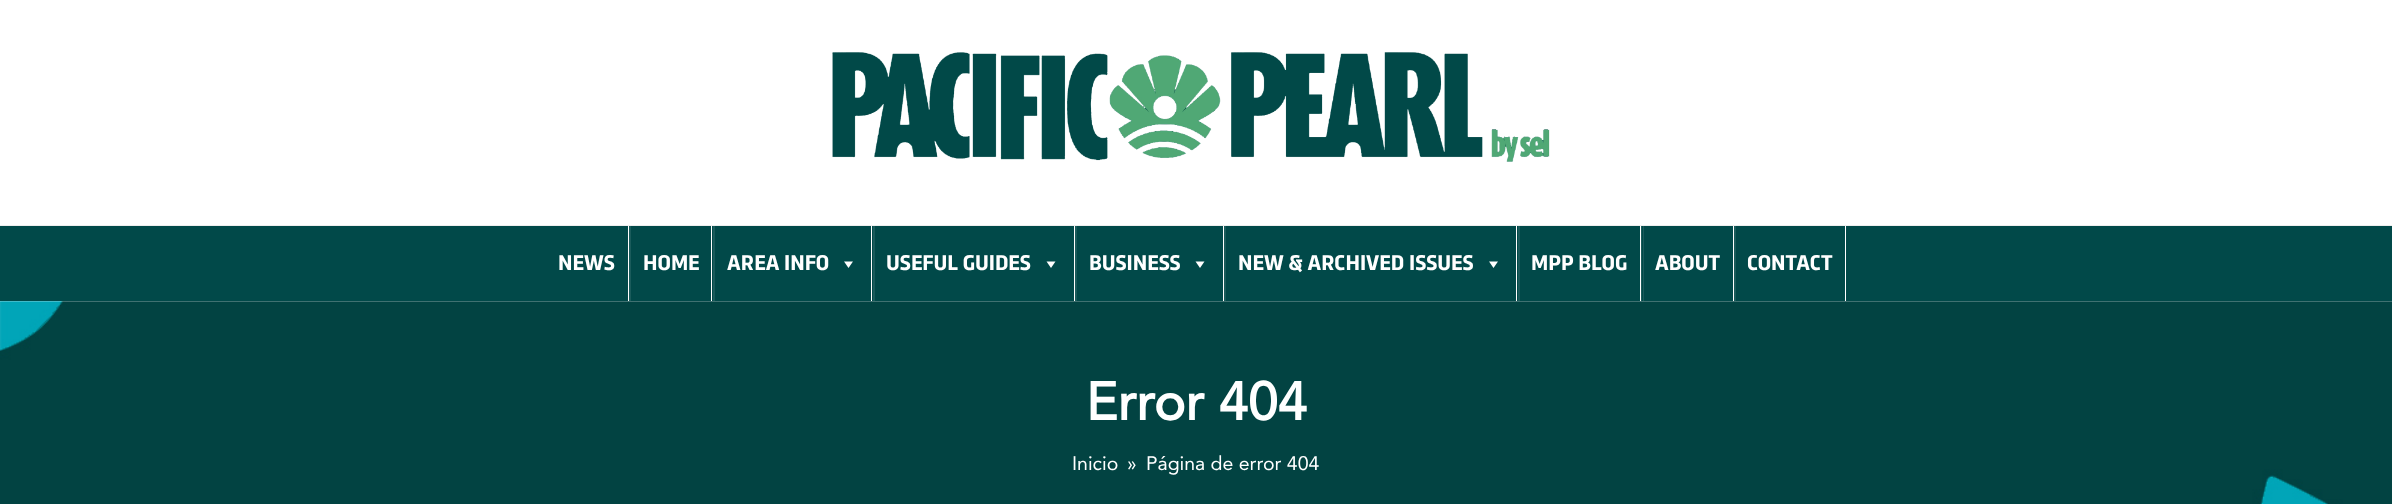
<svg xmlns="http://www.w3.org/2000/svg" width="2392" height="504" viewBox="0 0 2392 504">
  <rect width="100%" height="100%" fill="rgb(255,255,255)"/>
  <image x="832" y="52" width="718" height="110" href="pic1.png"/>
  <rect x="0" y="226" width="2392" height="75" fill="rgb(1,73,73)"/>
  <rect x="0" y="225" width="2392" height="1" fill="rgb(238,238,238)"/>
  <rect x="628" y="226" width="1" height="75" fill="rgb(255,255,255)"/>
  <text x="558" y="270" font-family="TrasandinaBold" font-size="22.5" font-weight="bold" fill="rgb(255,255,255)">NEWS</text>
  <rect x="629" y="226" width="2" height="75" fill="rgb(26,91,91)"/>
  <rect x="711" y="226" width="1" height="75" fill="rgb(255,255,255)"/>
  <text x="643" y="270" font-family="TrasandinaBold" font-size="22.5" font-weight="bold" fill="rgb(255,255,255)">HOME</text>
  <rect x="713" y="226" width="2" height="75" fill="rgb(26,91,91)"/>
  <rect x="871" y="226" width="1" height="75" fill="rgb(255,255,255)"/>
  <text x="727" y="270" font-family="TrasandinaBold" font-size="22.5" font-weight="bold" fill="rgb(255,255,255)">AREA INFO</text>
  <path d="M853 261.5L848.5 268L844 261.5Z" fill="rgb(255,255,255)"/>
  <rect x="873" y="226" width="2" height="75" fill="rgb(26,91,91)"/>
  <rect x="1074" y="226" width="1" height="75" fill="rgb(255,255,255)"/>
  <text x="886" y="270" font-family="TrasandinaBold" font-size="22.5" font-weight="bold" fill="rgb(255,255,255)">USEFUL GUIDES</text>
  <path d="M1055.5 261.5L1051 268L1046.5 261.5Z" fill="rgb(255,255,255)"/>
  <rect x="1075" y="226" width="2" height="75" fill="rgb(26,91,91)"/>
  <rect x="1223" y="226" width="1" height="75" fill="rgb(255,255,255)"/>
  <text x="1089" y="270" font-family="TrasandinaBold" font-size="22.5" font-weight="bold" fill="rgb(255,255,255)">BUSINESS</text>
  <path d="M1204.5 261.5L1200 268L1195.5 261.5Z" fill="rgb(255,255,255)"/>
  <rect x="1224" y="226" width="2" height="75" fill="rgb(26,91,91)"/>
  <rect x="1516" y="226" width="1" height="75" fill="rgb(255,255,255)"/>
  <text x="1238" y="270" font-family="TrasandinaBold" font-size="22.5" font-weight="bold" fill="rgb(255,255,255)">NEW &amp; ARCHIVED ISSUES</text>
  <path d="M1498 261.5L1493.5 268L1489 261.5Z" fill="rgb(255,255,255)"/>
  <rect x="1518" y="226" width="2" height="75" fill="rgb(26,91,91)"/>
  <rect x="1640" y="226" width="1" height="75" fill="rgb(255,255,255)"/>
  <text x="1531" y="270" font-family="TrasandinaBold" font-size="22.5" font-weight="bold" fill="rgb(255,255,255)">MPP BLOG</text>
  <rect x="1643" y="226" width="1" height="75" fill="rgb(26,91,91)"/>
  <rect x="1641" y="226" width="1" height="75" fill="rgb(26,91,91)"/>
  <rect x="1733" y="226" width="1" height="75" fill="rgb(255,255,255)"/>
  <text x="1655" y="270" font-family="TrasandinaBold" font-size="22.5" font-weight="bold" fill="rgb(255,255,255)">ABOUT</text>
  <rect x="1734" y="226" width="2" height="75" fill="rgb(26,91,91)"/>
  <rect x="1845" y="226" width="1" height="75" fill="rgb(255,255,255)"/>
  <text x="1747" y="270" font-family="TrasandinaBold" font-size="22.5" font-weight="bold" fill="rgb(255,255,255)">CONTACT</text>
  <image x="0" y="301" width="2392" height="203" href="pic2.png"/>
  <text x="1086" y="420" font-family="Avenir" font-size="53" font-weight="bold" fill="rgb(255,255,255)">Error 404</text>
  <g font-family="Avenir" font-size="19.5" fill="rgb(255,255,255)">
    <text x="1072" y="470">Inicio</text>
    <text x="1127" y="470">»</text>
    <text x="1146" y="470">Página de error 404</text>
  </g>
</svg>
